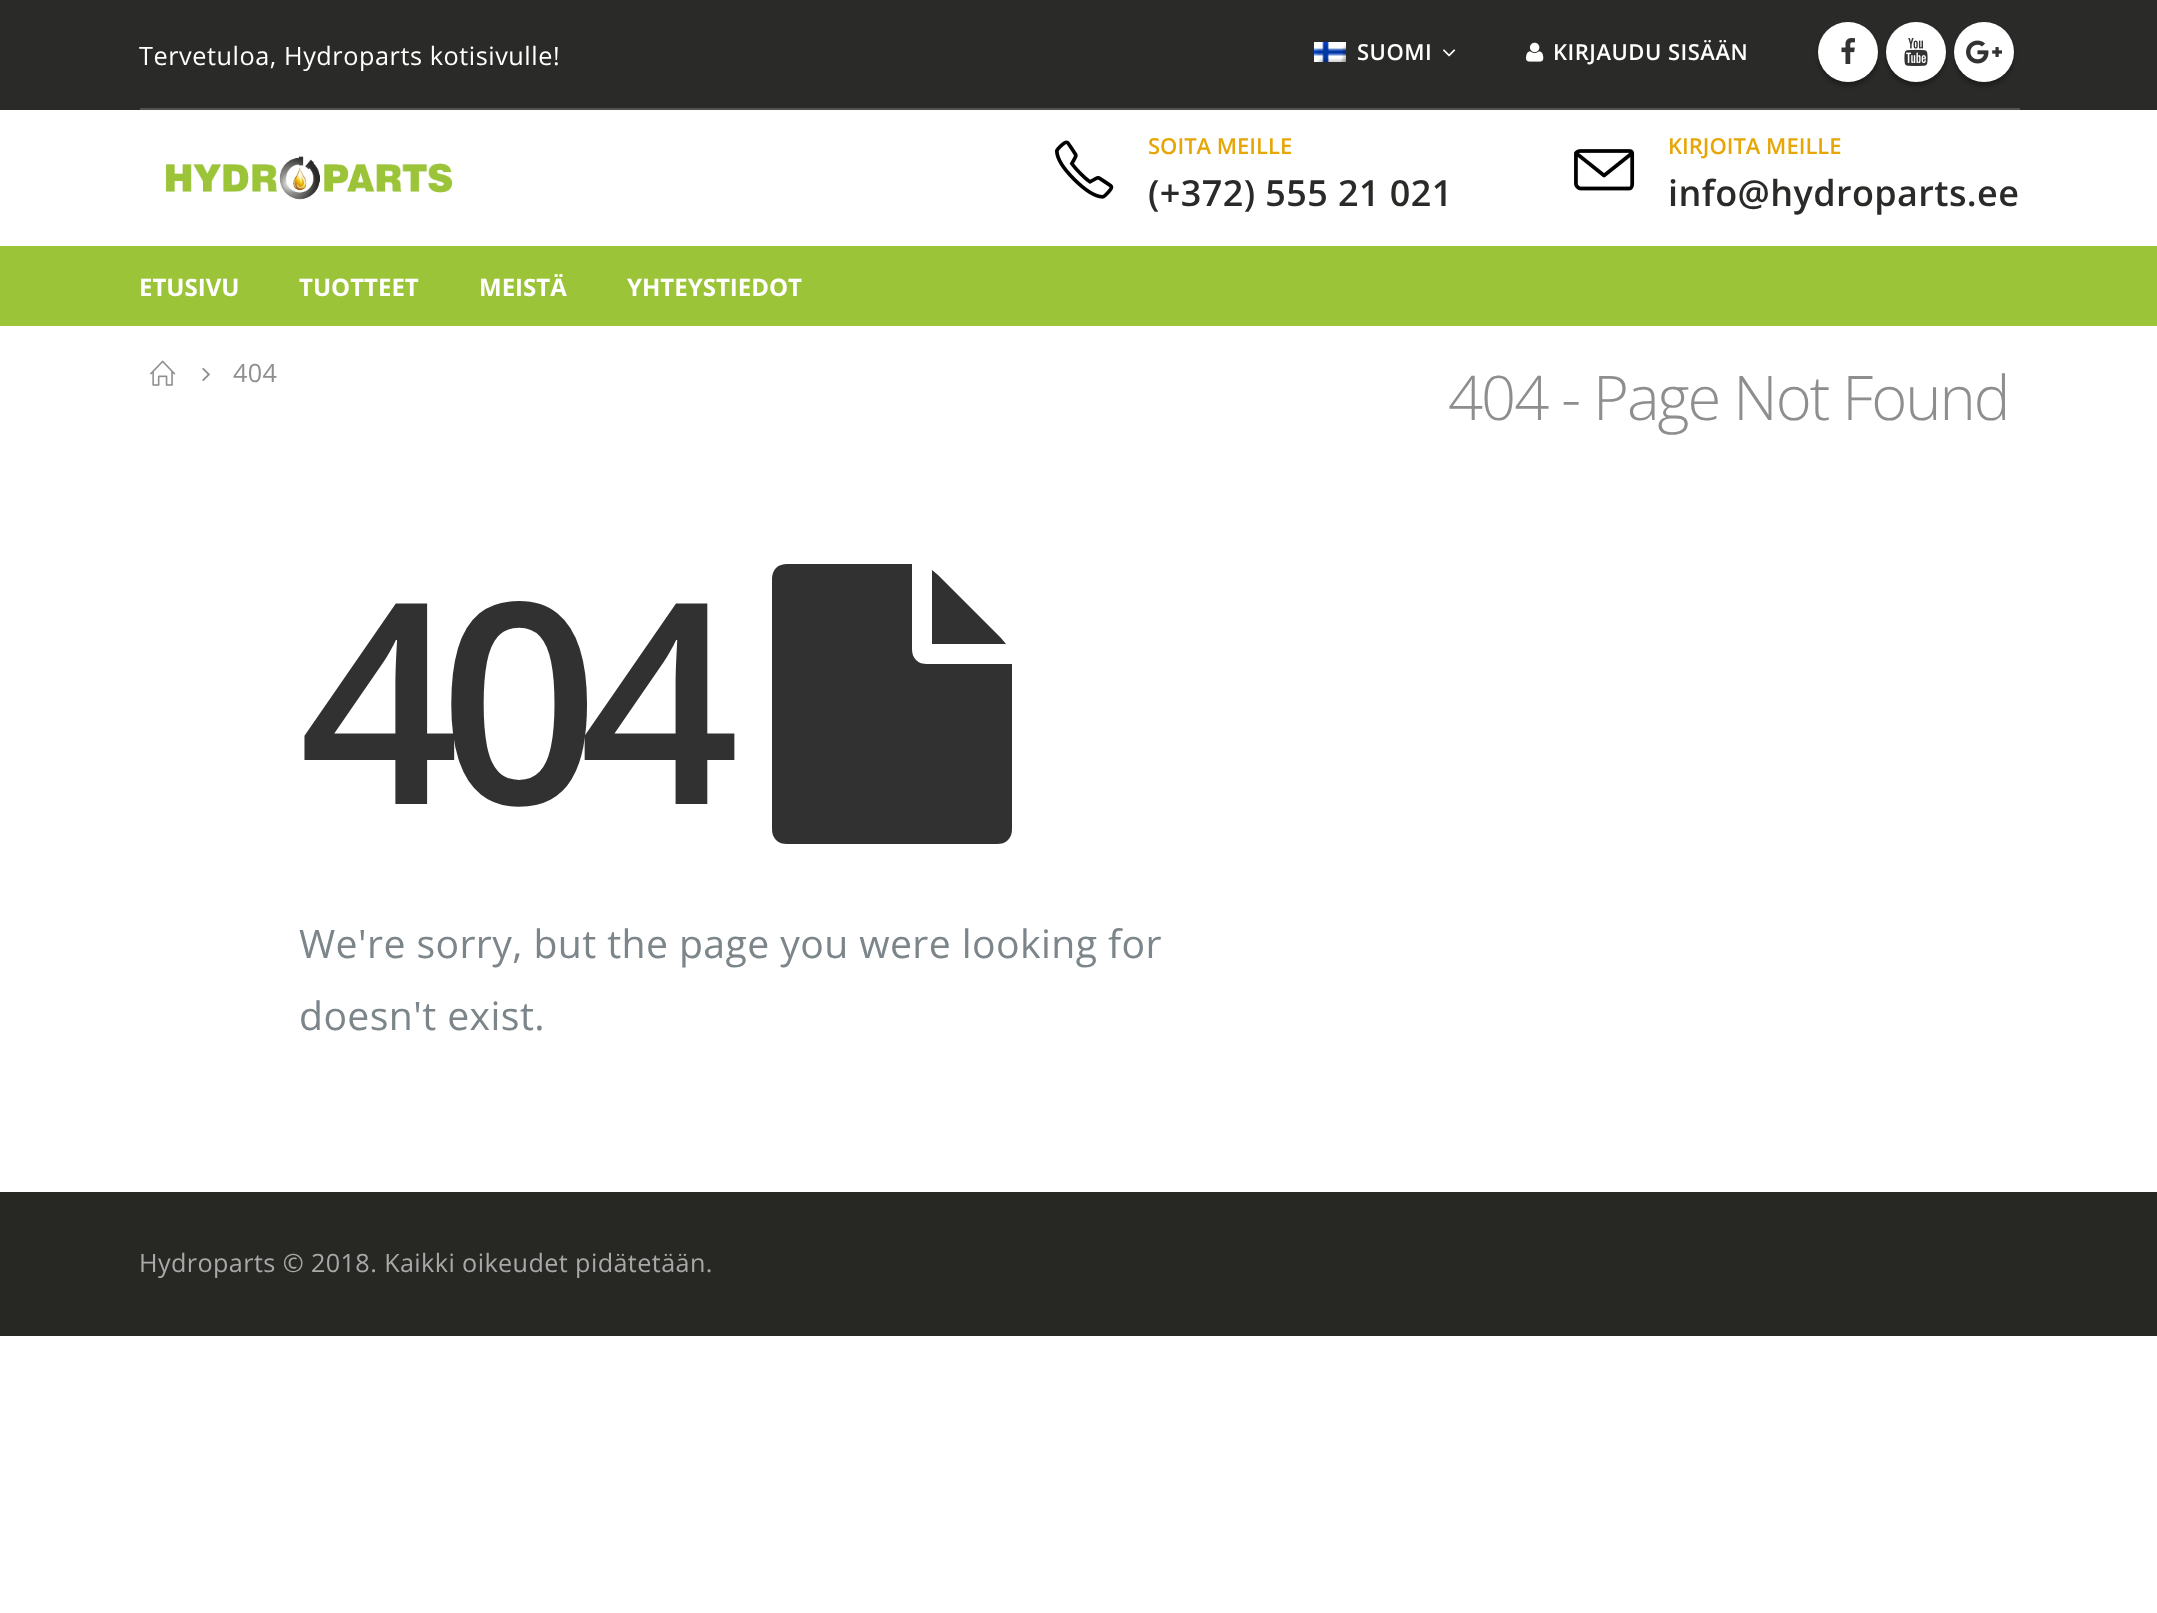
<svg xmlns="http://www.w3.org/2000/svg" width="2157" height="1613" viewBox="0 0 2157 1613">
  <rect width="100%" height="100%" fill="rgb(255,255,255)"/>
  <rect x="0" y="0" width="2157" height="110" fill="rgb(42,42,40)"/>
  <text x="139" y="65" font-family="Open Sans" font-size="25.25" letter-spacing="0.55" fill="rgb(255,255,255)">Tervetuloa, Hydroparts kotisivulle!</text>
  <image x="1314" y="42" width="32" height="20" href="pic1.png"/>
  <text x="1357" y="60" font-family="Open Sans" font-size="22" font-weight="600" letter-spacing="0.5" fill="rgb(255,255,255)">SUOMI</text>
  <image x="1443" y="49" width="13" height="8" href="pic2.png"/>
  <image x="1526" y="42" width="18" height="20" href="pic3.png"/>
  <text x="1553" y="60" font-family="Open Sans" font-size="22" font-weight="600" letter-spacing="0.5" fill="rgb(255,255,255)">KIRJAUDU SISÄÄN</text>
  <rect x="1818" y="26" width="60" height="60" rx="30" fill="rgba(0,0,0,0.3)" filter="blur(2px)"/>
  <circle cx="1848" cy="52" r="30" fill="rgb(255,255,255)"/>
  <image x="1841" y="38" width="14" height="26" href="pic4.png"/>
  <rect x="1886" y="26" width="60" height="60" rx="30" fill="rgba(0,0,0,0.3)" filter="blur(2px)"/>
  <circle cx="1916" cy="52" r="30" fill="rgb(255,255,255)"/>
  <image x="1904" y="38" width="24" height="28" href="pic5.png"/>
  <rect x="1954" y="26" width="60" height="60" rx="30" fill="rgba(0,0,0,0.3)" filter="blur(2px)"/>
  <circle cx="1984" cy="52" r="30" fill="rgb(255,255,255)"/>
  <image x="1966" y="40" width="36" height="24" href="pic6.png"/>
  <rect x="140" y="108" width="1880" height="2" fill="rgb(83,83,82)"/>
  <image x="165" y="156" width="288" height="44" href="pic7.png"/>
  <image x="1054" y="140" width="60" height="59" href="pic8.png"/>
  <text x="1148" y="154" font-family="Open Sans" font-size="22" font-weight="600" fill="rgb(230,166,6)">SOITA MEILLE</text>
  <text x="1148" y="206" font-family="Open Sans" font-size="36" font-weight="600" letter-spacing="0.4" fill="rgb(42,42,40)">(+372) 555 21 021</text>
  <image x="1574" y="149" width="61" height="42" href="pic9.png"/>
  <text x="1668" y="154" font-family="Open Sans" font-size="22" font-weight="600" fill="rgb(230,166,6)">KIRJOITA MEILLE</text>
  <text x="1668" y="206" font-family="Open Sans" font-size="36" font-weight="600" letter-spacing="0.4" fill="rgb(42,42,40)">info@hydroparts.ee</text>
  <rect x="0" y="246" width="2157" height="80" fill="rgb(155,196,56)"/>
  <g font-family="Open Sans" font-size="24" font-weight="bold" fill="rgb(255,255,255)">
    <text x="139" y="296">ETUSIVU</text>
    <text x="299" y="296">TUOTTEET</text>
    <text x="479" y="296">MEISTÄ</text>
    <text x="627" y="296">YHTEYSTIEDOT</text>
  </g>
  <image x="150" y="360" width="26" height="26" href="pic10.png"/>
  <image x="202" y="367" width="8" height="15" href="pic11.png"/>
  <text x="233" y="382" font-family="Open Sans" font-size="25.2" letter-spacing="0.4" fill="rgb(142,142,142)">404</text>
  <text x="1448" y="420" font-family="Open Sans" font-size="61.5" font-weight="300" letter-spacing="-2" fill="rgb(142,142,142)">404 - Page Not Found</text>
  <text x="299" y="804" font-family="Open Sans" font-size="280" font-weight="600" letter-spacing="-20" fill="rgb(49,49,49)">404</text>
  <path d="M932 644V570L938 575L1001 638L1006 644ZM912 649C912 653 913 657 916 660C919 663 923 664 927 664H1012V829C1012 833 1011 837 1008 840C1005 843 1001 844 997 844H787C783 844 779 843 776 840C773 837 772 833 772 829V579C772 575 773 571 776 568C779 565 783 564 787 564H912Z" fill="rgb(49,49,49)"/>
  <g font-family="Open Sans" font-size="39.2" letter-spacing="0.4" fill="rgb(123,133,138)">
    <text>
      <tspan x="299" y="958">We're sorry, but the page you were looking for</tspan>
      <tspan x="299" y="1030">doesn't exist.</tspan>
    </text>
  </g>
  <rect x="0" y="1192" width="2157" height="144" fill="rgb(39,39,35)"/>
  <text x="139" y="1272" font-family="Open Sans" font-size="25.2" letter-spacing="0.4" fill="rgb(168,168,168)">Hydroparts © 2018. Kaikki oikeudet pidätetään.</text>
</svg>
